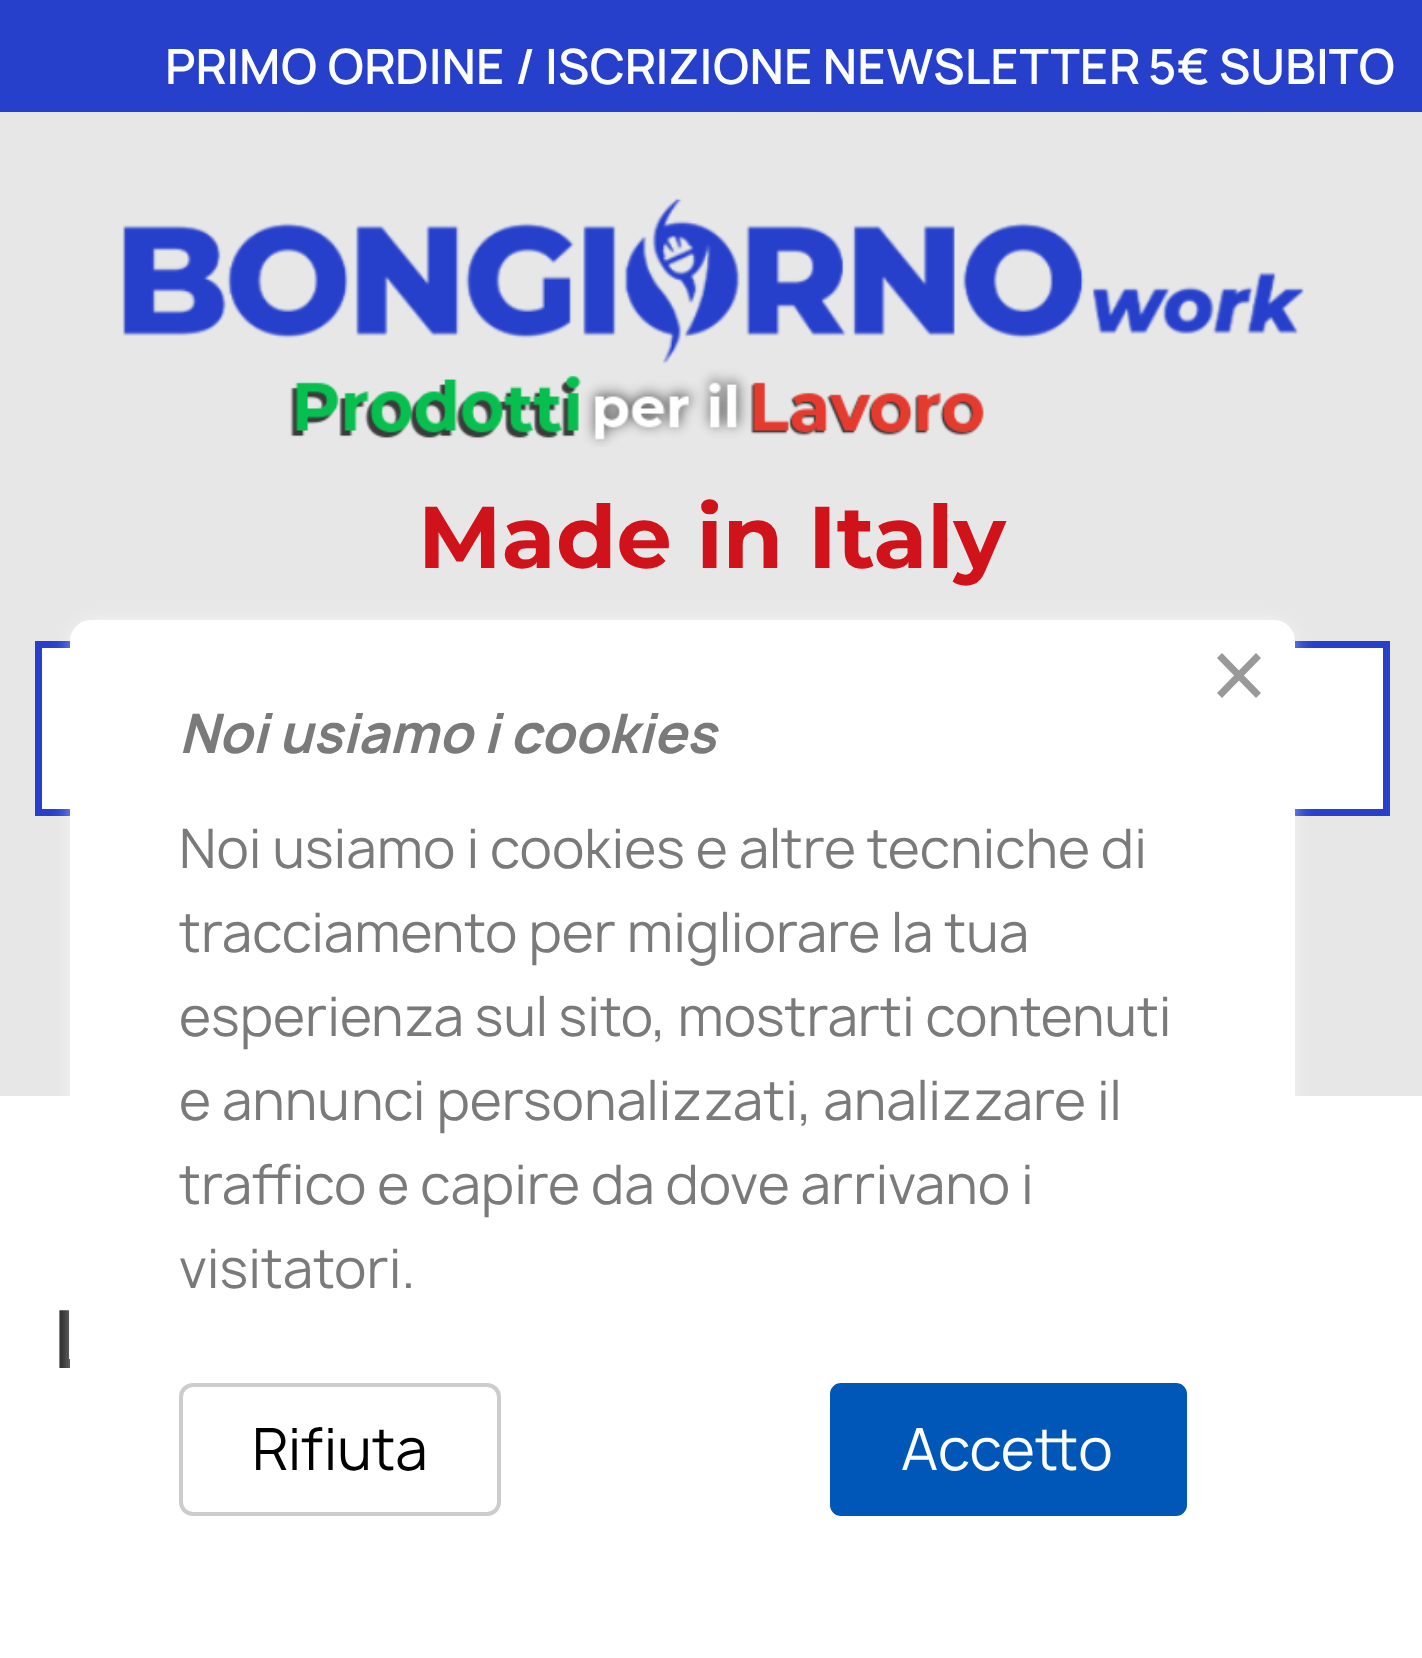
<svg xmlns="http://www.w3.org/2000/svg" width="1422" height="1658" viewBox="0 0 1422 1658">
  <rect width="100%" height="100%" fill="rgb(255,255,255)"/>
  <rect x="0" y="0" width="1422" height="112" fill="rgb(38,64,203)"/>
  <g font-family="Manrope" font-size="46.75" font-weight="600" fill="rgb(252,253,254)">
    <text x="165" y="84">PRIMO ORDINE / ISCRIZIONE NEWSLETTER</text>
    <text x="1148" y="84">5€ SUBITO</text>
  </g>
  <rect x="0" y="112" width="1422" height="984" fill="rgb(231,231,231)"/>
  <image x="122" y="198" width="1182" height="249" href="pic1.png"/>
  <text x="418" y="568" font-family="Montserrat" font-size="87.5" font-weight="bold" fill="rgb(208,18,26)">Made in Italy</text>
  <rect x="38.5" y="644.5" width="1348" height="168" fill="rgb(255,255,255)" stroke="rgb(38,64,203)" stroke-width="7"/>
  <text x="53" y="1368" font-family="Manrope" font-size="77" font-weight="bold" fill="rgb(35,35,35)">L</text>
  <rect x="77" y="627" width="1211" height="955" rx="14" fill="rgb(255,255,255)" filter="blur(12px)"/>
  <rect x="72" y="622" width="1221" height="965" rx="19" fill="rgb(255,255,255)" stroke="rgb(255,255,255)" stroke-width="4"/>
  <path d="M1217 693L1256 653L1261 658L1222 698Z" fill="rgb(153,153,153)"/>
  <path d="M1222 653L1261 693L1256 698L1217 658Z" fill="rgb(153,153,153)"/>
  <text x="179" y="753" font-family="Manrope" font-size="52.5" font-weight="bold" font-style="italic" fill="rgb(122,122,122)">Noi usiamo i cookies</text>
  <g font-family="Manrope" font-size="52.5" fill="rgb(122,122,122)">
    <text>
      <tspan x="179" y="868">Noi usiamo i cookies e altre tecniche di</tspan>
      <tspan x="179" y="952">tracciamento per migliorare la tua</tspan>
      <tspan x="179" y="1036">esperienza sul sito, mostrarti contenuti</tspan>
      <tspan x="179" y="1120">e annunci personalizzati, analizzare il</tspan>
      <tspan x="179" y="1204">traffico e capire da dove arrivano i</tspan>
      <tspan x="179" y="1288">visitatori.</tspan>
    </text>
  </g>
  <rect x="181" y="1385" width="318" height="129" rx="12" fill="none" stroke="rgb(204,204,204)" stroke-width="4"/>
  <text x="252" y="1470" font-family="Manrope" font-size="56" fill="rgb(0,0,0)">Rifiuta</text>
  <rect x="832" y="1385" width="353" height="129" rx="9" fill="rgb(0,87,184)" stroke="rgb(0,87,184)" stroke-width="4"/>
  <text x="901" y="1470" font-family="Manrope" font-size="56" fill="rgb(252,253,254)">Accetto</text>
</svg>
